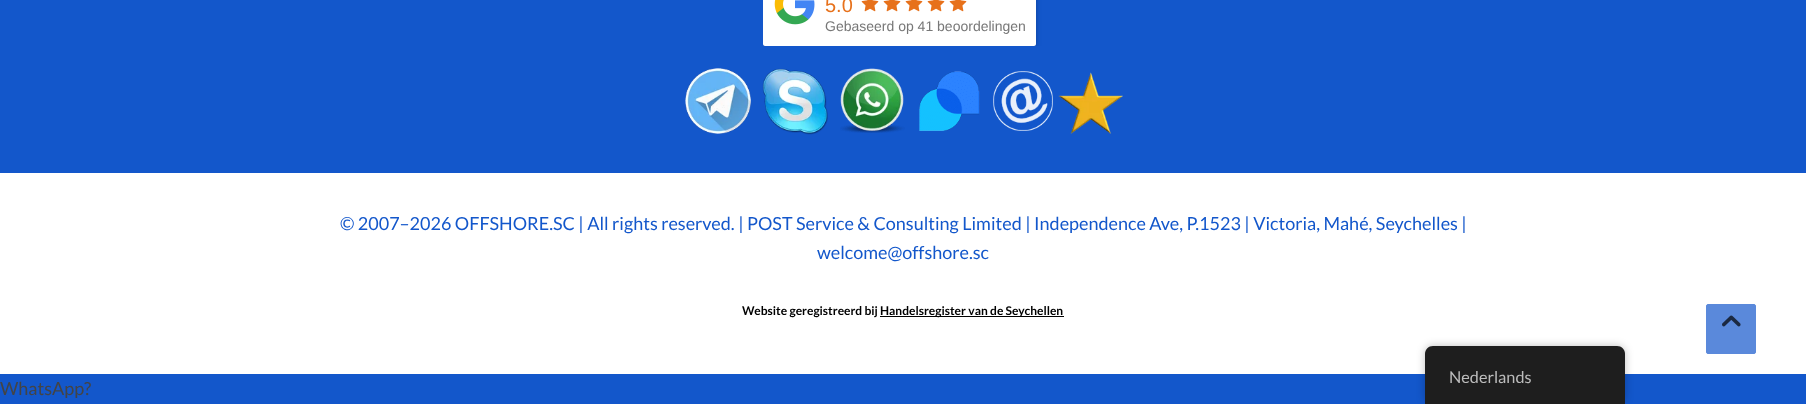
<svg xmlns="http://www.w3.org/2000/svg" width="1806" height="404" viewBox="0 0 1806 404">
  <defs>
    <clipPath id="clip1"><rect x="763" y="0" width="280" height="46"/></clipPath>
  </defs>
  <rect width="100%" height="100%" fill="rgb(19,87,203)"/>
  <rect x="0" y="173" width="1806" height="201" fill="rgb(255,255,255)"/>
  <g clip-path="url(#clip1)">
    <rect x="763" y="-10" width="273" height="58" rx="2" fill="rgba(0,0,0,0.26)" filter="blur(2.5px)"/>
  </g>
  <path d="M763-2H1036V44C1036 45 1035 46 1034 46H765C764 46 763 45 763 44Z" fill="rgb(255,255,255)"/>
  <image x="774" y="0" width="41" height="25" href="pic1.png"/>
  <text x="825" y="12" font-family="Liberation Sans" font-size="20" fill="rgb(231,113,27)">5.0</text>
  <image x="861" y="0" width="18" height="12" href="pic2.png"/>
  <image x="883" y="0" width="18" height="12" href="pic2.png"/>
  <image x="905" y="0" width="18" height="12" href="pic2.png"/>
  <image x="927" y="0" width="18" height="12" href="pic2.png"/>
  <image x="949" y="0" width="18" height="12" href="pic2.png"/>
  <text x="825" y="31" font-family="Liberation Sans" font-size="14" fill="rgb(119,119,119)">Gebaseerd op 41 beoordelingen</text>
  <image x="685" y="68" width="66" height="66" href="pic3.png"/>
  <image x="762" y="68" width="66" height="67" href="pic4.png"/>
  <image x="840" y="68" width="65" height="65" href="pic5.png"/>
  <image x="919" y="71" width="61" height="60" href="pic6.png"/>
  <image x="993" y="71" width="60" height="60" href="pic7.png"/>
  <image x="1058" y="72" width="65" height="62" href="pic8.png"/>
  <g font-family="Lato" font-size="18" fill="rgb(19,87,203)">
    <text x="340" y="230">© 2007–2026 OFFSHORE.SC | All rights reserved. | POST Service &amp; Consulting Limited | Independence Ave, P.1523 | Victoria, Mahé, Seychelles |</text>
    <text x="817" y="259">welcome@offshore.sc</text>
  </g>
  <text x="742" y="315" font-family="Lato" font-size="12" font-weight="bold" fill="rgb(0,0,0)">Website geregistreerd bij</text>
  <rect x="880" y="316" width="184" height="1" fill="rgb(0,0,0)"/>
  <text x="880" y="315" font-family="Lato" font-size="12" font-weight="bold" fill="rgb(0,0,0)">Handelsregister van de Seychellen</text>
  <rect x="1706.5" y="304.5" width="49" height="49" rx="1.5" fill="rgb(90,137,219)" stroke="rgb(90,137,219)"/>
  <image x="1722" y="315" width="19" height="12" href="pic9.png"/>
  <rect x="1425" y="346" width="200" height="58" rx="8" fill="rgba(0,0,0,0.25)" filter="blur(4px)"/>
  <path d="M1433 346H1617C1621.5 346 1625 349.5 1625 354V404H1425V354C1425 349.5 1428.5 346 1433 346Z" fill="rgb(30,30,30)"/>
  <text x="1449" y="383" font-family="Lato" font-size="16.25" fill="rgb(189,189,189)">Nederlands</text>
  <text x="0" y="395" font-family="Lato" font-size="18" fill="rgb(68,68,68)">WhatsApp?</text>
</svg>
